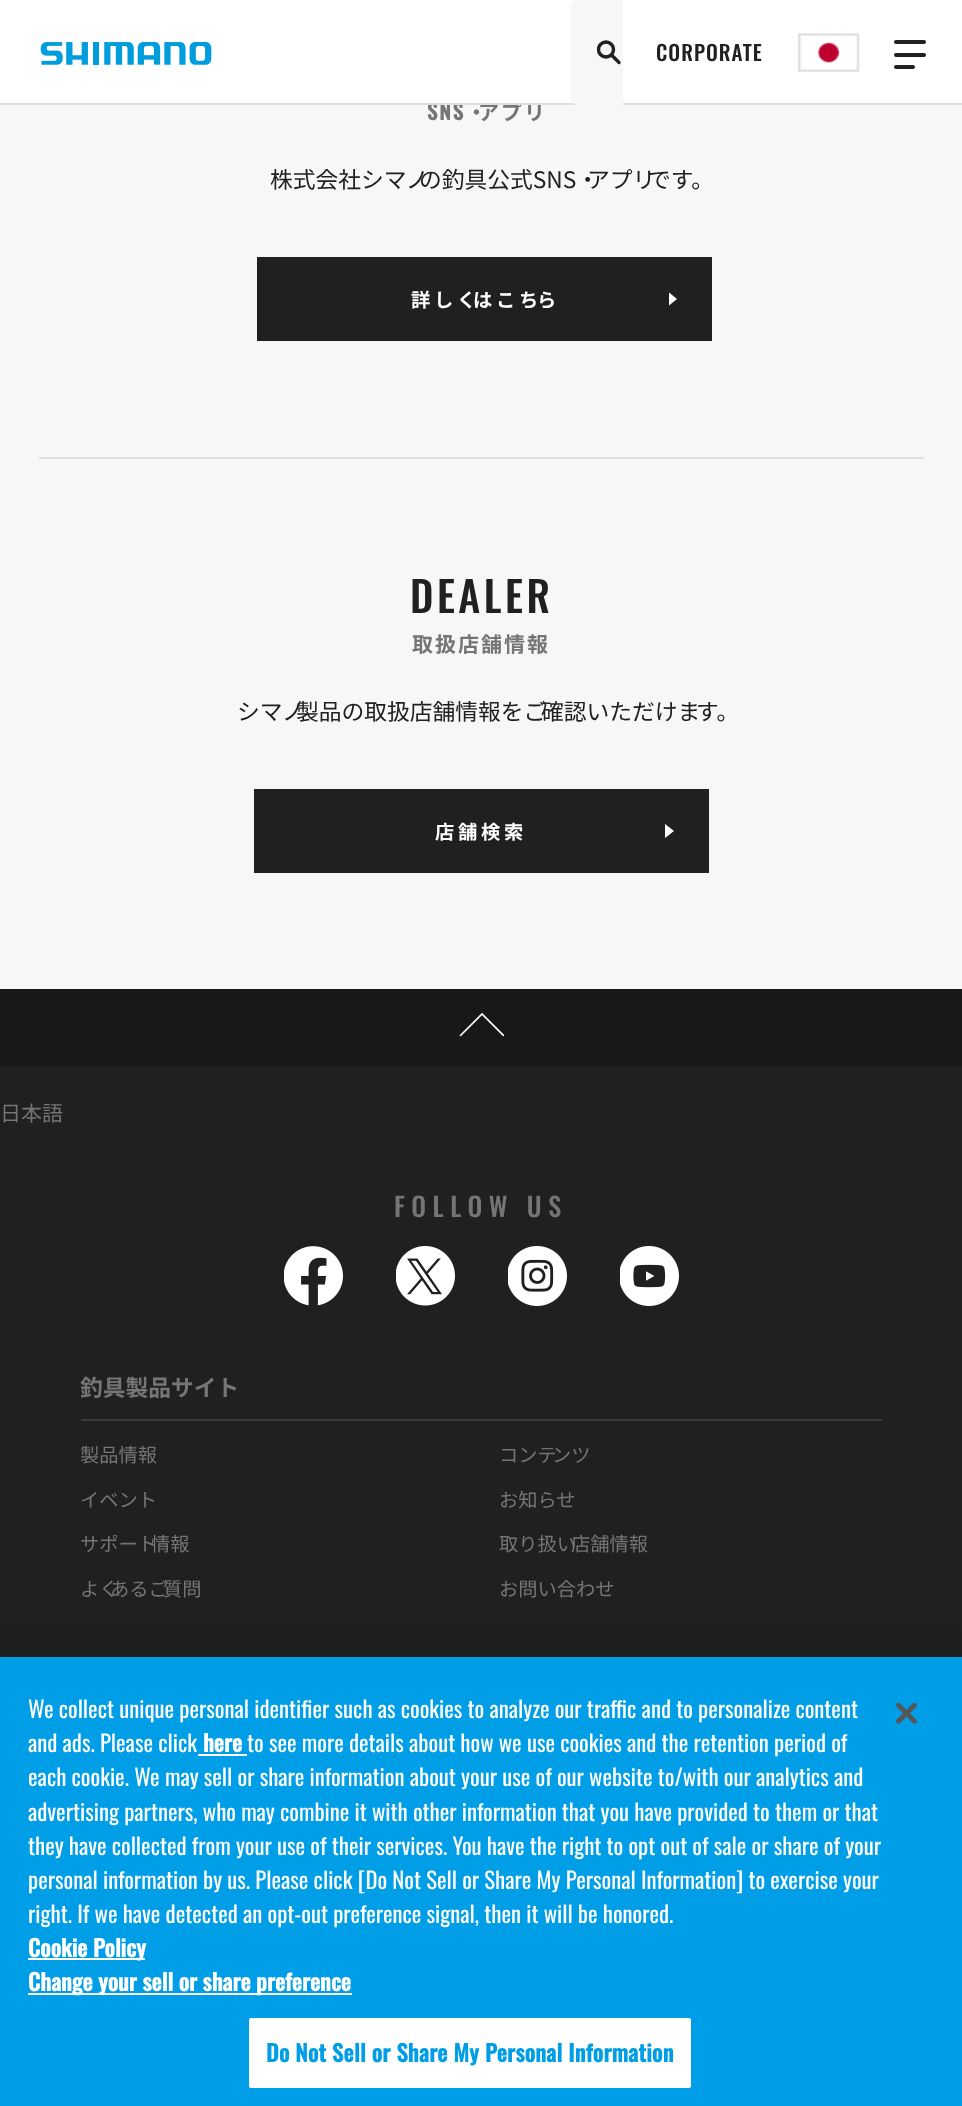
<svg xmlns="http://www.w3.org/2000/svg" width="962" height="2106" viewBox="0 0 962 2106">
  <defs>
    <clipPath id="clip1"><rect x="597" y="40" width="24" height="25"/></clipPath>
    <clipPath id="clip2"><rect x="669" y="292" width="8" height="14"/></clipPath>
    <clipPath id="clip3"><path d="M458.5 1036.5V1012H504V1036.5Z"/></clipPath>
  </defs>
  <rect width="100%" height="100%" fill="rgb(247,247,247)"/>
  <text x="427" y="120" font-family="Oswald" font-size="21" font-weight="bold" letter-spacing="2" fill="rgb(117,117,117)">SNS</text>
  <text x="466" y="120" font-family="Noto Sans JP" font-size="21" font-weight="bold" letter-spacing="2" fill="rgb(117,117,117)">・</text>
  <text x="478" y="120" font-family="Noto Sans JP" font-size="21" font-weight="bold" letter-spacing="2" fill="rgb(117,117,117)">アプリ</text>
  <rect x="0" y="0" width="962" height="103" fill="rgb(255,255,255)"/>
  <rect x="0" y="103" width="962" height="2" fill="rgb(223,223,223)"/>
  <image x="40" y="42" width="172" height="23" href="pic1.png"/>
  <path d="M578 0H623V105H578C574 105 571 102 571 98V7C571 3 574 0 578 0Z" fill="rgb(247,247,247)"/>
  <g clip-path="url(#clip1)">
    <circle cx="606" cy="49.5" r="7.5" fill="none" stroke="rgb(32,32,32)" stroke-width="3.4"/>
  </g>
  <path d="M612 55.5L619 62.5" fill="none" stroke="rgb(32,32,32)" stroke-width="3.4" stroke-linecap="round"/>
  <text x="656" y="61" font-family="Oswald" font-size="21" font-weight="500" letter-spacing="1" fill="rgb(32,32,32)">CORPORATE</text>
  <image x="798" y="33" width="62" height="39" href="pic2.png"/>
  <rect x="894" y="40" width="32" height="4" rx="2" fill="rgb(32,32,32)"/>
  <rect x="894" y="53" width="32" height="4" rx="2" fill="rgb(32,32,32)"/>
  <rect x="894" y="65" width="21" height="4" rx="2" fill="rgb(32,32,32)"/>
  <text x="270" y="188" font-family="Noto Sans JP" font-size="22.75" fill="rgb(32,32,32)">株式会社シマノ</text>
  <text x="419" y="188" font-family="Noto Sans JP" font-size="22.75" fill="rgb(32,32,32)">の釣具公式SNS・</text>
  <text x="587" y="188" font-family="Noto Sans JP" font-size="22.75" fill="rgb(32,32,32)">アプリ</text>
  <text x="648" y="188" font-family="Noto Sans JP" font-size="22.75" fill="rgb(32,32,32)">です。</text>
  <rect x="257" y="257" width="455" height="84" fill="rgb(32,32,32)"/>
  <text x="411" y="307" font-family="Noto Sans JP" font-size="19.25" font-weight="bold" letter-spacing="3.75" fill="rgb(255,255,255)">詳しく</text>
  <text x="473" y="307" font-family="Noto Sans JP" font-size="19.25" font-weight="bold" letter-spacing="3.75" fill="rgb(255,255,255)">はこち</text>
  <text x="537" y="307" font-family="Noto Sans JP" font-size="19.25" font-weight="bold" letter-spacing="3.75" fill="rgb(255,255,255)">ら</text>
  <g clip-path="url(#clip2)">
    <path d="M677 299L668.5 306V292Z" fill="rgb(255,255,255)"/>
  </g>
  <rect x="39" y="457" width="885" height="2" fill="rgb(223,223,223)"/>
  <text x="410" y="613" font-family="Oswald" font-size="42" font-weight="500" letter-spacing="3.5" fill="rgb(32,32,32)">DEALER</text>
  <text x="412" y="652" font-family="Noto Sans JP" font-size="21" font-weight="bold" letter-spacing="2" fill="rgb(117,117,117)">取扱店舗情報</text>
  <text x="237" y="720" font-family="Noto Sans JP" font-size="22.75" fill="rgb(32,32,32)">シマノ</text>
  <text x="296" y="720" font-family="Noto Sans JP" font-size="22.75" fill="rgb(32,32,32)">製品の取扱店舗情報をご</text>
  <text x="541" y="720" font-family="Noto Sans JP" font-size="22.75" fill="rgb(32,32,32)">確認いただけま</text>
  <text x="696" y="720" font-family="Noto Sans JP" font-size="22.75" fill="rgb(32,32,32)">す。</text>
  <rect x="254" y="789" width="455" height="84" fill="rgb(32,32,32)"/>
  <text x="435" y="839" font-family="Noto Sans JP" font-size="19.25" font-weight="bold" letter-spacing="3.75" fill="rgb(255,255,255)">店舗検索</text>
  <path d="M674 831L665 838V824Z" fill="rgb(255,255,255)"/>
  <rect x="0" y="1066" width="962" height="591" fill="rgb(32,32,32)"/>
  <rect x="0" y="989" width="962" height="77" fill="rgb(24,24,24)"/>
  <g clip-path="url(#clip3)">
    <path d="M504 1036L482 1014L460 1036" fill="none" stroke="rgb(255,255,255)" stroke-width="1.7"/>
  </g>
  <text x="0" y="1121" font-family="Noto Sans JP" font-size="21" fill="rgb(117,117,117)">日本語</text>
  <text x="394" y="1217" font-family="Oswald" font-size="26.25" font-weight="500" letter-spacing="6.5" fill="rgb(117,117,117)">FOLLOW US</text>
  <image x="284" y="1246" width="59" height="60" href="pic3.png"/>
  <image x="396" y="1246" width="59" height="60" href="pic4.png"/>
  <image x="508" y="1246" width="59" height="60" href="pic5.png"/>
  <image x="620" y="1246" width="59" height="60" href="pic6.png"/>
  <text x="80" y="1396" font-family="Noto Sans JP" font-size="22.75" font-weight="bold" fill="rgb(117,117,117)">釣具製品サイト</text>
  <rect x="81" y="1419" width="801" height="2" fill="rgb(59,59,59)"/>
  <g font-family="Noto Sans JP" font-size="19.25" fill="rgb(117,117,117)">
    <text x="80" y="1462">製品情報</text>
    <text x="499" y="1462">コンテ</text>
    <text x="552" y="1462">ンツ</text>
    <text x="80" y="1507">イベント</text>
    <text x="499" y="1507">お知らせ</text>
    <text x="80" y="1551">サポート</text>
    <text x="151" y="1551">情報</text>
    <text x="499" y="1551">取り扱い</text>
    <text x="571" y="1551">店舗情報</text>
    <text x="80" y="1596">よく</text>
    <text x="110" y="1596">あるご</text>
    <text x="163" y="1596">質問</text>
    <text x="499" y="1596">お問い合わせ</text>
  </g>
  <rect x="0" y="1657" width="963" height="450" fill="rgba(0,0,0,0.2)" filter="blur(16px)"/>
  <rect x="0" y="1657" width="962" height="449" fill="rgb(0,158,231)"/>
  <g font-family="Oswald" font-size="22.75" fill="rgb(255,255,255)">
    <text>
      <tspan x="28" y="1718">We collect unique personal identifier such as cookies to analyze our traffic and to personalize content</tspan>
      <tspan x="28" y="1752">and ads. Please click</tspan>
    </text>
  </g>
  <text x="203" y="1752" font-family="Oswald" font-size="22.75" font-weight="bold" fill="rgb(255,255,255)">here</text>
  <rect x="198" y="1754" width="49" height="2" fill="rgb(255,255,255)"/>
  <g font-family="Oswald" font-size="22.75" fill="rgb(255,255,255)">
    <text x="247" y="1752">to see more details about how we use cookies and the retention period of</text>
    <text>
      <tspan x="28" y="1786">each cookie. We may sell or share information about your use of our website to/with our analytics and</tspan>
      <tspan x="28" y="1821">advertising partners, who may combine it with other information that you have provided to them or that</tspan>
      <tspan x="28" y="1855">they have collected from your use of their services. You have the right to opt out of sale or share of your</tspan>
      <tspan x="28" y="1889">personal information by us. Please click [Do Not Sell or Share My Personal Information] to exercise your</tspan>
      <tspan x="28" y="1923">right. If we have detected an opt-out preference signal, then it will be honored.</tspan>
    </text>
  </g>
  <rect x="28" y="1958" width="117" height="2" fill="rgb(255,255,255)"/>
  <text x="28" y="1957" font-family="Oswald" font-size="22.75" font-weight="bold" fill="rgb(255,255,255)">Cookie Policy</text>
  <rect x="28" y="1993" width="324" height="2" fill="rgb(255,255,255)"/>
  <text x="28" y="1991" font-family="Oswald" font-size="22.75" font-weight="bold" fill="rgb(255,255,255)">Change your sell or share preference</text>
  <rect x="248" y="2017" width="444" height="72" rx="3" fill="rgb(255,255,255)" stroke="rgb(0,158,231)" stroke-width="2"/>
  <text x="266" y="2062" font-family="Oswald" font-size="22.75" font-weight="bold" letter-spacing="0.25" fill="rgb(0,158,231)">Do Not Sell or Share My Personal Information</text>
  <image x="896" y="1703" width="21" height="21" href="pic7.png"/>
</svg>
